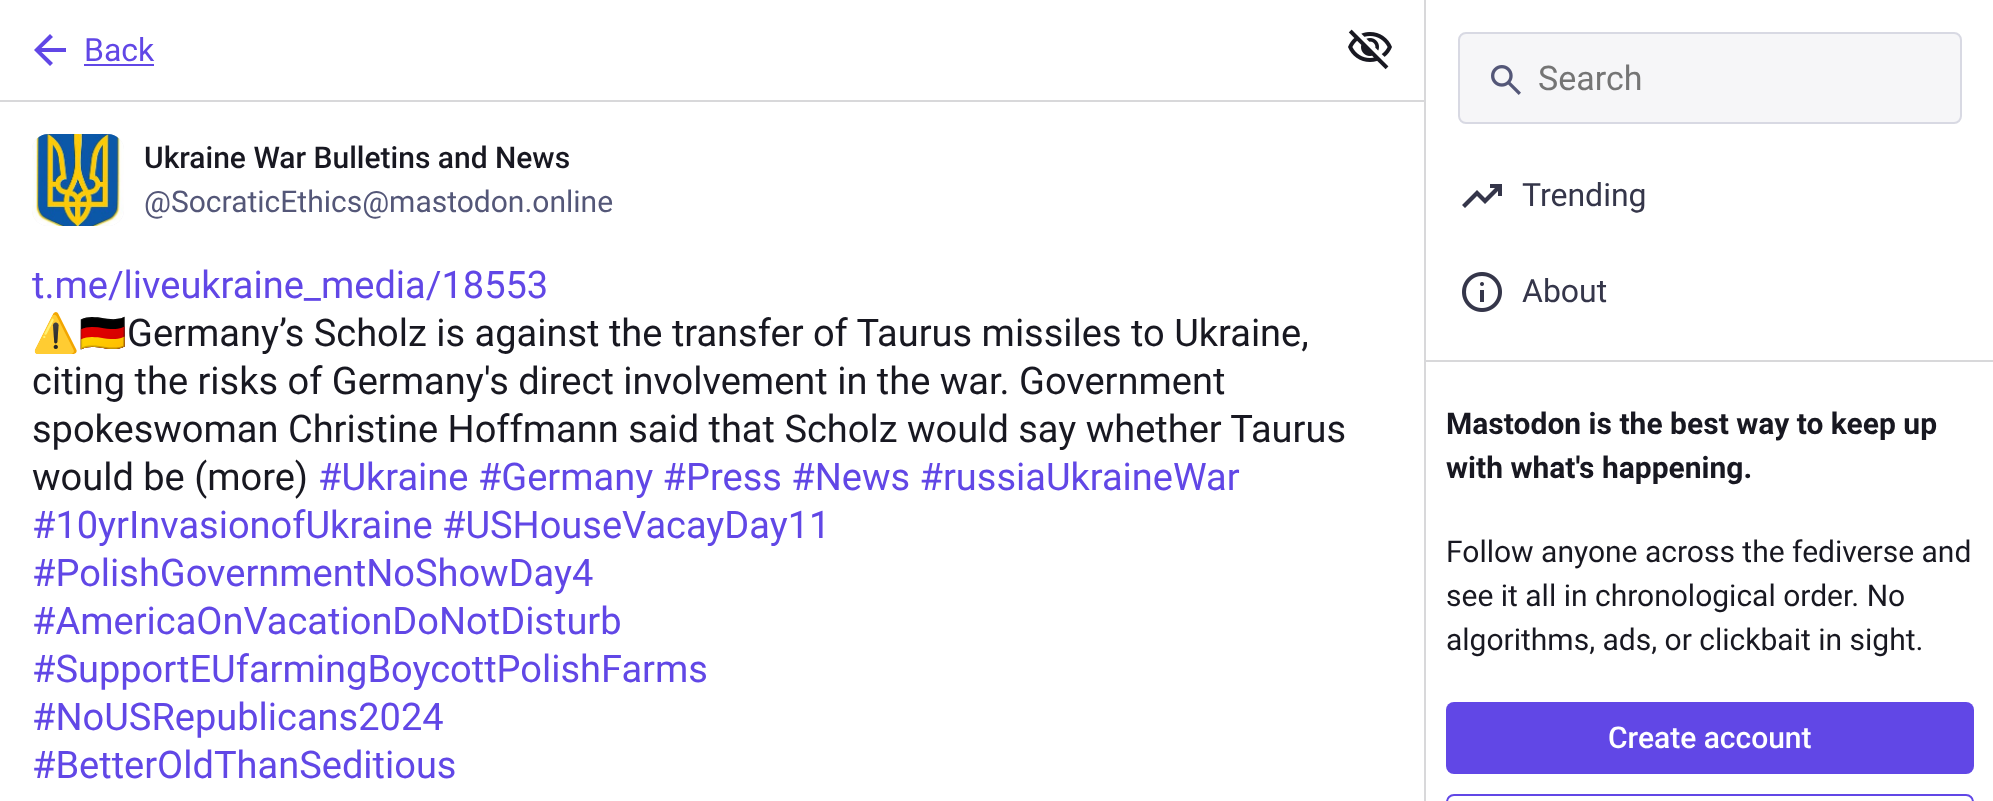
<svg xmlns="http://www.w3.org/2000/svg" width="1993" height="801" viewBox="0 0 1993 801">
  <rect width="100%" height="100%" fill="rgb(255,255,255)"/>
  <rect x="0" y="100" width="1424" height="2" fill="rgb(216,216,218)"/>
  <path d="M41.5 52L53 63L50 66L34 50L50 34L53 37L41.5 48H66V52Z" fill="rgb(97,71,230)"/>
  <text x="84" y="61" font-family="Roboto" font-size="32" fill="rgb(97,71,230)">Back</text>
  <rect x="84" y="64" width="70" height="2" fill="rgb(97,71,230)"/>
  <image x="1348" y="29" width="44" height="41" href="pic1.png"/>
  <rect x="32" y="134" width="92" height="92" rx="16" fill="rgb(236,237,241)"/>
  <image x="32" y="134" width="92" height="92" href="pic2.png"/>
  <text x="144" y="168" font-family="Roboto" font-size="30" font-weight="500" fill="rgb(24,24,33)">Ukraine War Bulletins and News</text>
  <text x="144" y="212" font-family="Roboto" font-size="30" fill="rgb(84,87,120)">@SocraticEthics@mastodon.online</text>
  <text x="32" y="298" font-family="Roboto" font-size="38" fill="rgb(97,71,230)">t.me/liveukraine_media/18553</text>
  <text x="32" y="346" font-family="Noto Color Emoji" font-size="38" fill="rgb(24,24,33)">⚠️🇩🇪</text>
  <g font-family="Roboto" font-size="38" fill="rgb(24,24,33)">
    <text x="127" y="346">Germany’s Scholz is against the transfer of Taurus missiles to Ukraine,</text>
    <text>
      <tspan x="32" y="394">citing the risks of Germany's direct involvement in the war. Government</tspan>
      <tspan x="32" y="442">spokeswoman Christine Hoffmann said that Scholz would say whether Taurus</tspan>
      <tspan x="32" y="490">would be (more)</tspan>
    </text>
  </g>
  <g font-family="Roboto" font-size="38" fill="rgb(97,71,230)">
    <text x="318" y="490">#Ukraine #Germany #Press #News #russiaUkraineWar</text>
    <text>
      <tspan x="32" y="538">#10yrInvasionofUkraine #USHouseVacayDay11</tspan>
      <tspan x="32" y="586">#PolishGovernmentNoShowDay4</tspan>
      <tspan x="32" y="634">#AmericaOnVacationDoNotDisturb</tspan>
      <tspan x="32" y="682">#SupportEUfarmingBoycottPolishFarms</tspan>
      <tspan x="32" y="730">#NoUSRepublicans2024</tspan>
      <tspan x="32" y="778">#BetterOldThanSeditious</tspan>
    </text>
  </g>
  <rect x="1424" y="0" width="2" height="801" fill="rgb(216,216,218)"/>
  <rect x="1459" y="33" width="502" height="90" rx="7" fill="rgb(246,246,248)" stroke="rgb(216,217,227)" stroke-width="2"/>
  <image x="1491" y="65" width="30" height="30" href="pic3.png"/>
  <text x="1538" y="90" font-family="Roboto" font-size="34" fill="rgb(117,117,117)">Search</text>
  <path d="M1465 208L1462 205L1477 190L1485 198L1495 188H1490V184H1502V196H1498V191L1485 204L1477 196Z" fill="rgb(53,54,74)"/>
  <text x="1522" y="206" font-family="Roboto" font-size="32" fill="rgb(53,54,74)">Trending</text>
  <image x="1462" y="272" width="40" height="40" href="pic4.png"/>
  <text x="1522" y="302" font-family="Roboto" font-size="32" fill="rgb(53,54,74)">About</text>
  <rect x="1426" y="360" width="567" height="2" fill="rgb(216,216,218)"/>
  <g font-family="Roboto" font-size="30" font-weight="bold" fill="rgb(24,24,33)">
    <text>
      <tspan x="1446" y="434">Mastodon is the best way to keep up</tspan>
      <tspan x="1446" y="478">with what's happening.</tspan>
    </text>
  </g>
  <g font-family="Roboto" font-size="30" fill="rgb(24,24,33)">
    <text>
      <tspan x="1446" y="562">Follow anyone across the fediverse and</tspan>
      <tspan x="1446" y="606">see it all in chronological order. No</tspan>
      <tspan x="1446" y="650">algorithms, ads, or clickbait in sight.</tspan>
    </text>
  </g>
  <rect x="1446" y="702" width="528" height="72" rx="8" fill="rgb(97,71,230)"/>
  <text x="1608" y="748" font-family="Roboto" font-size="30" font-weight="500" fill="rgb(255,255,255)">Create account</text>
  <rect x="1447" y="795" width="526" height="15" rx="7" fill="none" stroke="rgb(97,71,230)" stroke-width="2"/>
</svg>
